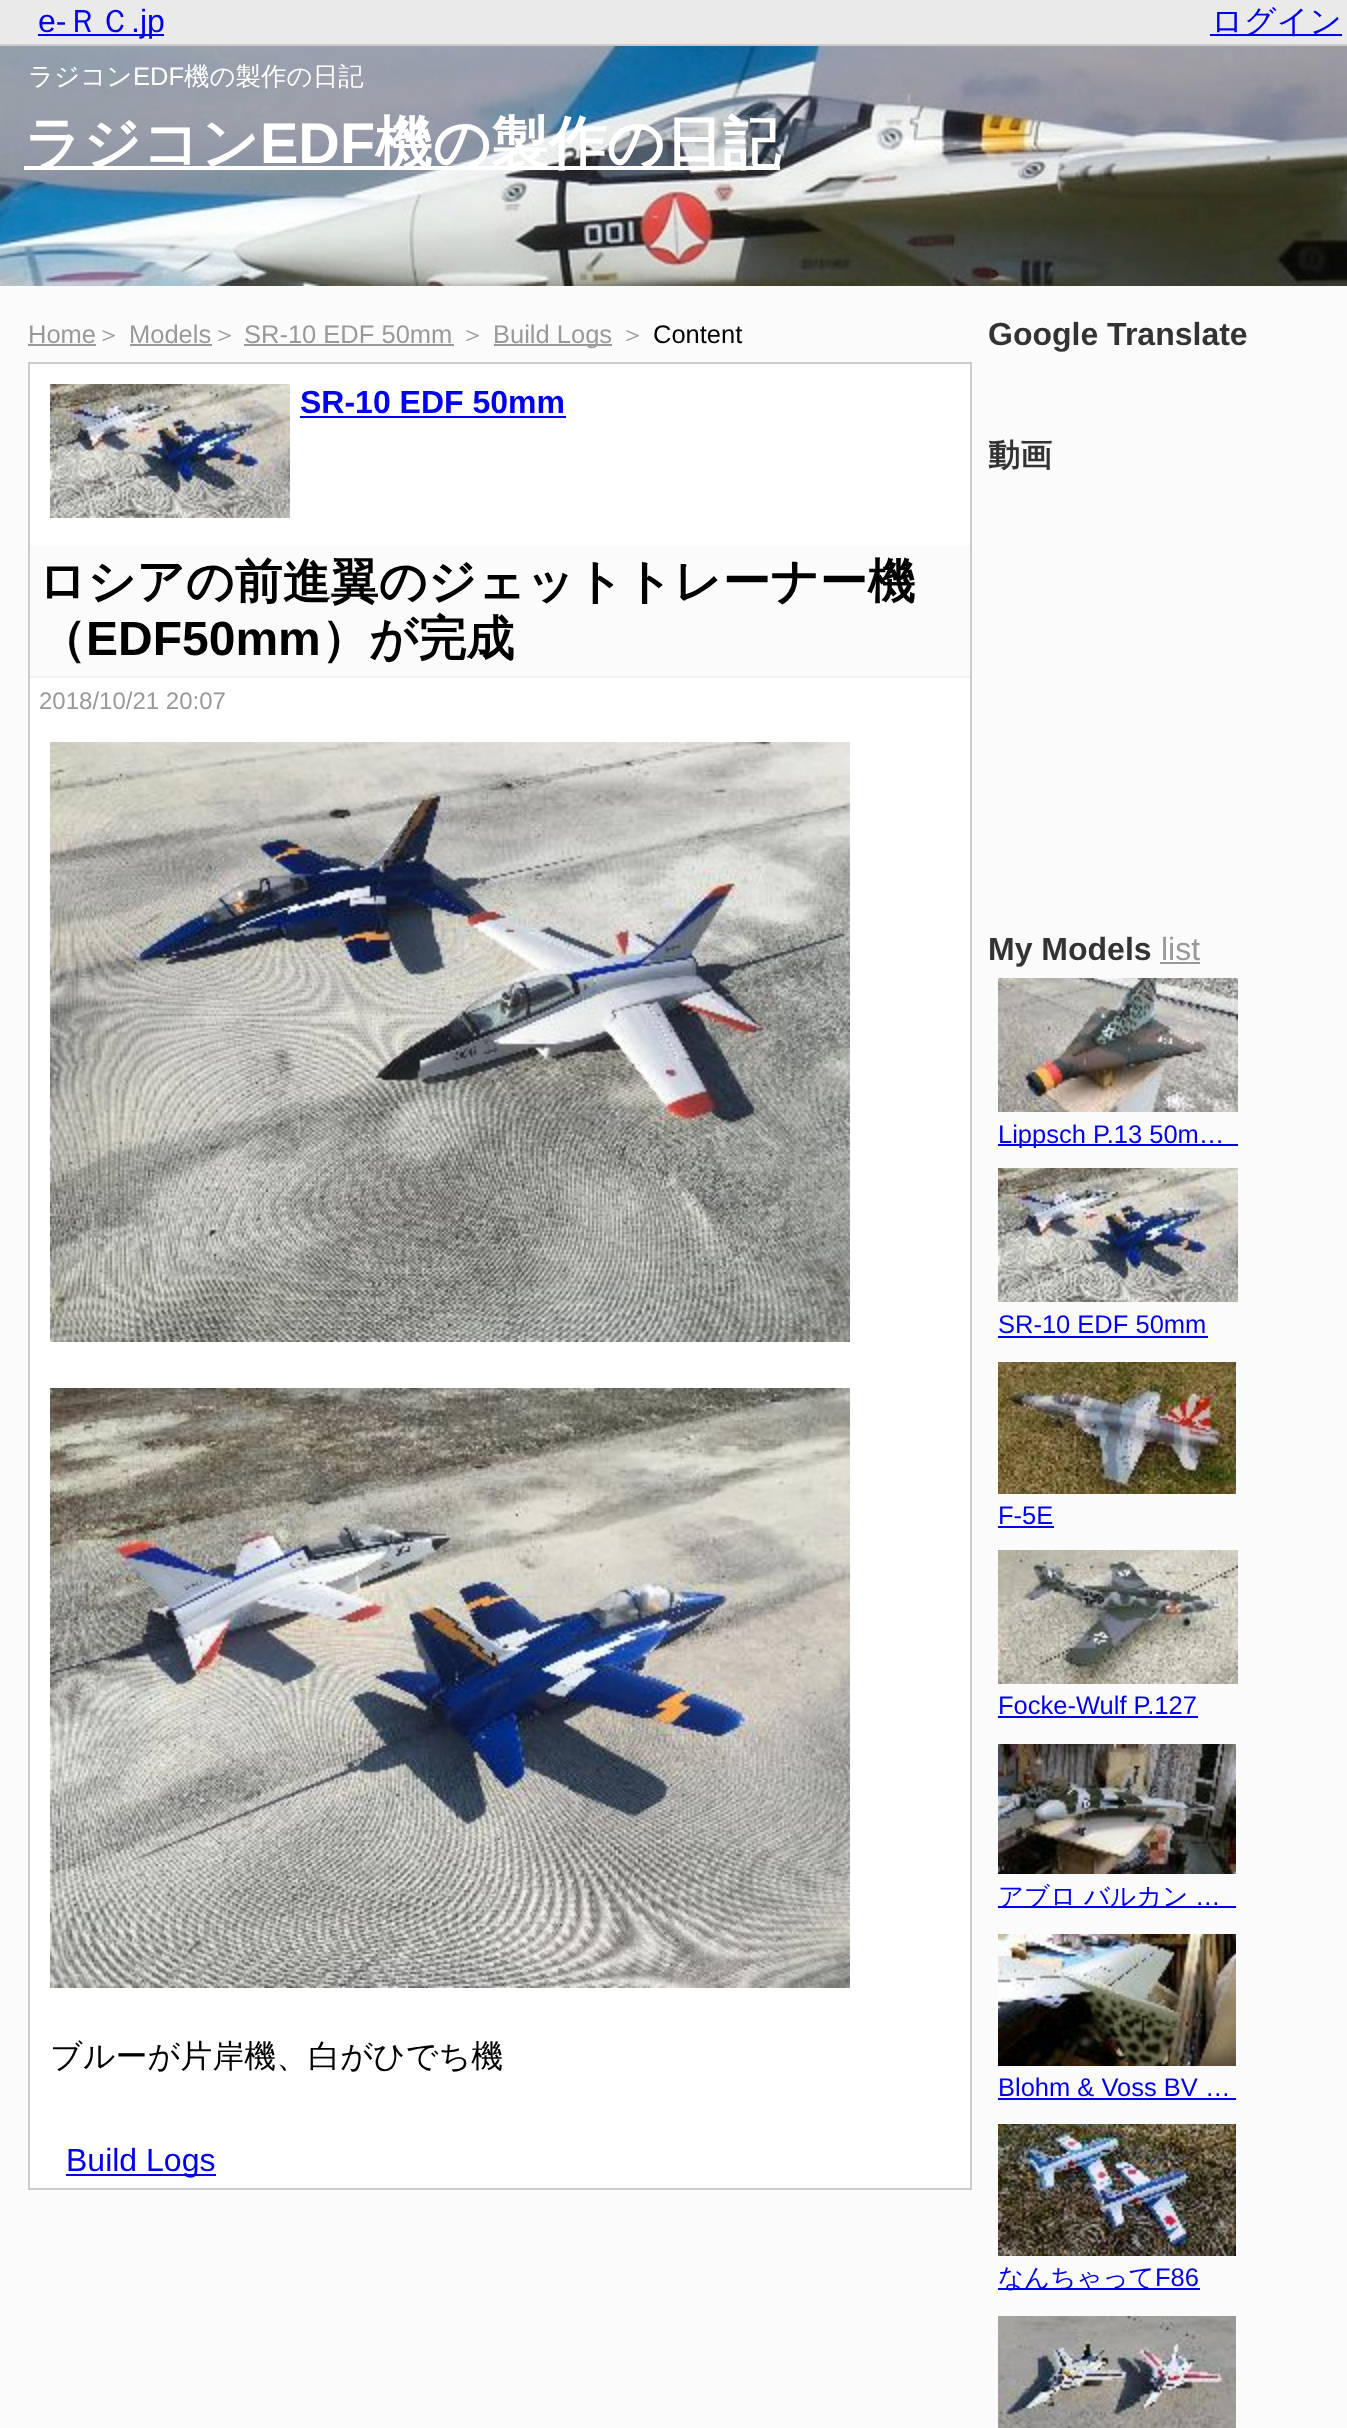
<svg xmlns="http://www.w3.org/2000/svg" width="1347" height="2428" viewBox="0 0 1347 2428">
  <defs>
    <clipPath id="clip1"><rect x="998" y="1120" width="240" height="28"/></clipPath>
  </defs>
  <rect width="100%" height="100%" fill="rgb(251,251,251)"/>
  <rect x="0" y="0" width="1347" height="44" fill="rgb(234,234,234)"/>
  <rect x="0" y="44" width="1347" height="2" fill="rgb(204,204,204)"/>
  <text x="38" y="32" font-family="Liberation Sans" font-size="32" fill="rgb(0,0,238)">e-</text>
  <rect x="38" y="34" width="126" height="2" fill="rgb(0,0,238)"/>
  <text x="67" y="32" font-family="WenQuanYi Zen Hei" font-size="32" font-weight="500" fill="rgb(0,0,238)">ＲＣ</text>
  <text x="131" y="32" font-family="Liberation Sans" font-size="32" fill="rgb(0,0,238)">.jp</text>
  <rect x="1210" y="34" width="132" height="2" fill="rgb(0,0,238)"/>
  <text x="1211" y="32" font-family="WenQuanYi Zen Hei" font-size="32" font-weight="500" fill="rgb(0,0,238)">ログイン</text>
  <image x="0" y="46" width="1347" height="240" href="pic1.png"/>
  <text x="28" y="85" font-family="WenQuanYi Zen Hei" font-size="25.5" font-weight="500" fill="rgb(255,255,255)">ラジコン</text>
  <text x="133" y="85" font-family="Liberation Sans" font-size="25.5" fill="rgb(255,255,255)">EDF</text>
  <text x="184" y="85" font-family="WenQuanYi Zen Hei" font-size="25.5" font-weight="500" fill="rgb(255,255,255)">機の製作の日記</text>
  <rect x="24" y="166" width="756" height="4" fill="rgb(255,255,255)"/>
  <text x="24" y="163" font-family="WenQuanYi Zen Hei" font-size="57.5" font-weight="bold" fill="rgb(255,255,255)">ラジコン</text>
  <text x="260" y="163" font-family="Liberation Sans" font-size="57.5" font-weight="bold" fill="rgb(255,255,255)">EDF</text>
  <text x="375" y="163" font-family="WenQuanYi Zen Hei" font-size="57.5" font-weight="bold" fill="rgb(255,255,255)">機の製作の日記</text>
  <text x="28" y="343" font-family="Liberation Sans" font-size="25.5" fill="rgb(153,153,153)">Home</text>
  <rect x="28" y="344" width="68" height="2" fill="rgb(153,153,153)"/>
  <text x="96" y="343" font-family="WenQuanYi Zen Hei" font-size="25.5" font-weight="500" fill="rgb(153,153,153)">＞</text>
  <text x="129" y="343" font-family="Liberation Sans" font-size="25.5" fill="rgb(153,153,153)">Models</text>
  <rect x="130" y="344" width="82" height="2" fill="rgb(153,153,153)"/>
  <text x="212" y="343" font-family="WenQuanYi Zen Hei" font-size="25.5" font-weight="500" fill="rgb(153,153,153)">＞</text>
  <text x="244" y="343" font-family="Liberation Sans" font-size="25.5" fill="rgb(153,153,153)">SR-10 EDF 50mm</text>
  <rect x="244" y="344" width="210" height="2" fill="rgb(153,153,153)"/>
  <text x="460" y="343" font-family="WenQuanYi Zen Hei" font-size="25.5" font-weight="500" fill="rgb(153,153,153)">＞</text>
  <rect x="494" y="344" width="118" height="2" fill="rgb(153,153,153)"/>
  <text x="493" y="343" font-family="Liberation Sans" font-size="25.5" fill="rgb(153,153,153)">Build Logs</text>
  <text x="620" y="343" font-family="WenQuanYi Zen Hei" font-size="25.5" font-weight="500" fill="rgb(153,153,153)">＞</text>
  <text x="653" y="343" font-family="Liberation Sans" font-size="25.5" fill="rgb(0,0,0)">Content</text>
  <rect x="29" y="363" width="942" height="1826" fill="rgb(255,255,255)" stroke="rgb(204,204,204)" stroke-width="2"/>
  <image x="50" y="384" width="240" height="134" href="pic2.png"/>
  <text x="300" y="413" font-family="Liberation Sans" font-size="32" font-weight="bold" fill="rgb(0,0,238)">SR-10 EDF 50mm</text>
  <rect x="300" y="416" width="266" height="2" fill="rgb(0,0,238)"/>
  <rect x="30" y="546" width="940" height="130" fill="rgb(251,251,251)"/>
  <rect x="30" y="676" width="940" height="2" fill="rgb(243,243,243)"/>
  <g font-family="WenQuanYi Zen Hei" font-size="48" font-weight="bold" fill="rgb(0,0,0)">
    <text>
      <tspan x="38" y="598">ロシアの前進翼のジェットトレーナー機</tspan>
      <tspan x="38" y="655">（</tspan>
    </text>
  </g>
  <text x="86" y="655" font-family="Liberation Sans" font-size="48" font-weight="bold" fill="rgb(0,0,0)">EDF50mm</text>
  <text x="321" y="655" font-family="WenQuanYi Zen Hei" font-size="48" font-weight="bold" fill="rgb(0,0,0)">）が完成</text>
  <text x="39" y="709" font-family="Liberation Sans" font-size="24" fill="rgb(153,153,153)">2018/10/21 20:07</text>
  <image x="50" y="742" width="800" height="600" href="pic3.png"/>
  <image x="50" y="1388" width="800" height="600" href="pic4.png"/>
  <text x="50" y="2067" font-family="WenQuanYi Zen Hei" font-size="32" font-weight="500" fill="rgb(0,0,0)">ブルーが片岸機、白がひでち機</text>
  <rect x="66" y="2174" width="150" height="2" fill="rgb(0,0,238)"/>
  <text x="66" y="2171" font-family="Liberation Sans" font-size="32" fill="rgb(0,0,238)">Build Logs</text>
  <text x="988" y="345" font-family="Liberation Sans" font-size="32" font-weight="bold" fill="rgb(51,51,51)">Google Translate</text>
  <text x="988" y="466" font-family="WenQuanYi Zen Hei" font-size="32" font-weight="bold" fill="rgb(51,51,51)">動画</text>
  <text x="988" y="960" font-family="Liberation Sans" font-size="32" font-weight="bold" fill="rgb(51,51,51)">My Models</text>
  <text x="1161" y="960" font-family="Liberation Sans" font-size="32" fill="rgb(153,153,153)">list</text>
  <rect x="1160" y="962" width="40" height="2" fill="rgb(153,153,153)"/>
  <image x="998" y="978" width="240" height="134" href="pic5.png"/>
  <rect x="998" y="1144" width="240" height="2" fill="rgb(0,0,238)"/>
  <g clip-path="url(#clip1)">
    <text x="998" y="1143" font-family="Liberation Sans" font-size="25.5" fill="rgb(0,0,238)">Lippsch P.13 50m…</text>
  </g>
  <image x="998" y="1168" width="240" height="134" href="pic6.png"/>
  <text x="998" y="1333" font-family="Liberation Sans" font-size="25.5" fill="rgb(0,0,238)">SR-10 EDF 50mm</text>
  <rect x="998" y="1336" width="210" height="2" fill="rgb(0,0,238)"/>
  <image x="998" y="1362" width="238" height="132" href="pic7.png"/>
  <text x="998" y="1524" font-family="Liberation Sans" font-size="25.5" fill="rgb(0,0,238)">F-5E</text>
  <rect x="998" y="1526" width="56" height="2" fill="rgb(0,0,238)"/>
  <image x="998" y="1550" width="240" height="134" href="pic8.png"/>
  <text x="998" y="1714" font-family="Liberation Sans" font-size="25.5" fill="rgb(0,0,238)">Focke-Wulf P.127</text>
  <rect x="998" y="1716" width="200" height="2" fill="rgb(0,0,238)"/>
  <image x="998" y="1744" width="238" height="130" href="pic9.png"/>
  <rect x="998" y="1906" width="238" height="2" fill="rgb(0,0,238)"/>
  <g font-family="WenQuanYi Zen Hei" font-size="25.5" font-weight="500" fill="rgb(0,0,238)">
    <text x="998" y="1905">アブロ</text>
    <text x="1084" y="1905">バルカン</text>
  </g>
  <text x="1195" y="1905" font-family="Liberation Sans" font-size="25.5" fill="rgb(0,0,238)">…</text>
  <image x="998" y="1934" width="238" height="132" href="pic10.png"/>
  <text x="998" y="2096" font-family="Liberation Sans" font-size="25.5" fill="rgb(0,0,238)">Blohm &amp; Voss BV …</text>
  <rect x="998" y="2098" width="238" height="2" fill="rgb(0,0,238)"/>
  <image x="998" y="2124" width="238" height="132" href="pic11.png"/>
  <rect x="998" y="2288" width="202" height="2" fill="rgb(0,0,238)"/>
  <text x="998" y="2286" font-family="WenQuanYi Zen Hei" font-size="25.5" font-weight="500" fill="rgb(0,0,238)">なんちゃって</text>
  <text x="1155" y="2286" font-family="Liberation Sans" font-size="25.5" fill="rgb(0,0,238)">F86</text>
  <image x="998" y="2316" width="238" height="112" href="pic12.png"/>
</svg>
